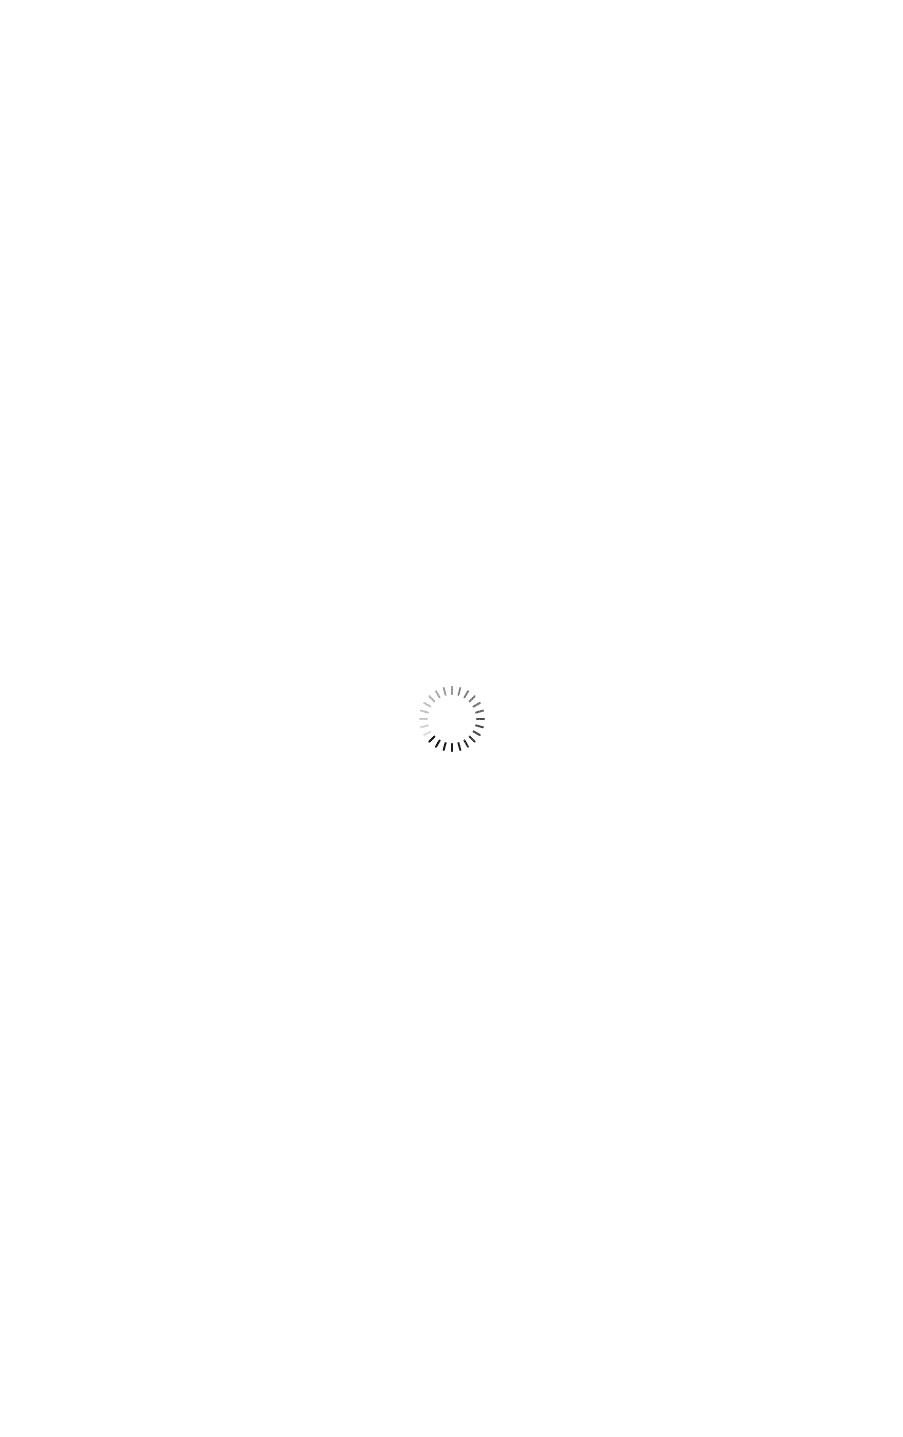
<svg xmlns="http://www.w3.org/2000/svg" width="903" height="1437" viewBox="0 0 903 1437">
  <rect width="100%" height="100%" fill="rgb(255,255,255)"/>
  <image x="419" y="686" width="66" height="66" href="pic1.png"/>
</svg>
